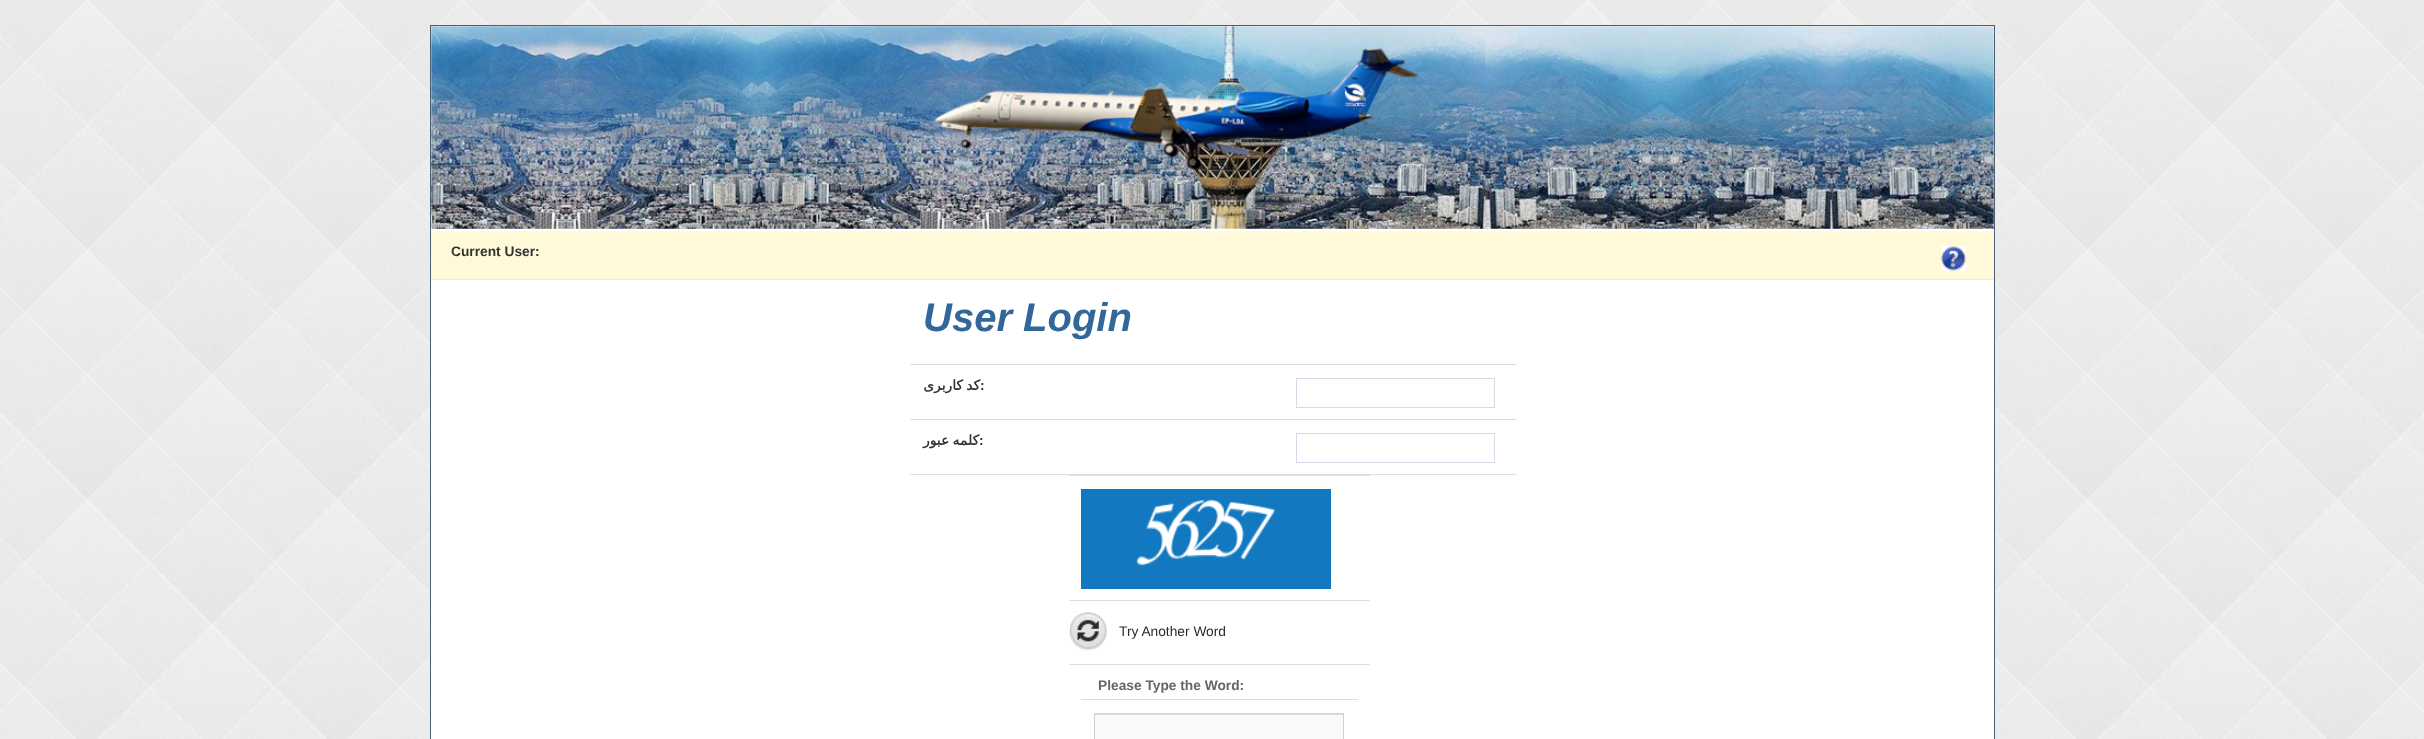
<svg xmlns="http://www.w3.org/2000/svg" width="2424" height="739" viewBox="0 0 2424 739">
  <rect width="100%" height="100%" fill="rgb(255,255,255)"/>
  <image x="0" y="0" width="2424" height="739" href="pic1.png"/>
  <rect x="430.5" y="25.5" width="1564" height="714" fill="rgb(255,255,255)" stroke="rgb(73,96,119)"/>
  <image x="431" y="26" width="1563" height="203" href="pic2.png"/>
  <rect x="432" y="231" width="1562" height="48" fill="rgb(255,249,215)"/>
  <rect x="433" y="233" width="1560" height="1" fill="rgb(255,251,225)"/>
  <rect x="431" y="279" width="1563" height="1" fill="rgb(255,238,139)"/>
  <rect x="431" y="231" width="1" height="49" fill="rgb(255,249,215)"/>
  <text x="451" y="256" font-family="Liberation Sans" font-size="13.75" font-weight="bold" fill="rgb(51,51,51)">Current User:</text>
  <image x="1941" y="246" width="26" height="26" href="pic3.png"/>
  <text x="923" y="331" font-family="Liberation Sans" font-size="40" font-weight="bold" font-style="italic" fill="rgb(51,102,153)">User Login</text>
  <rect x="910" y="364" width="606" height="1" fill="rgb(221,221,221)"/>
  <rect x="1296.5" y="378.5" width="198" height="29" fill="none" stroke="rgb(212,218,232)"/>
  <text x="980" y="390" word-spacing="-1" font-family="DejaVu Sans" font-size="13.75" font-weight="bold" direction="rtl" fill="rgb(51,51,51)">کد کاربری</text>
  <text x="980" y="390" font-family="Liberation Sans" font-size="13.75" font-weight="bold" fill="rgb(51,51,51)">:</text>
  <rect x="910" y="419" width="606" height="1" fill="rgb(221,221,221)"/>
  <rect x="1296.5" y="433.5" width="198" height="29" fill="none" stroke="rgb(212,218,232)"/>
  <text x="979" y="445" word-spacing="-1" font-family="DejaVu Sans" font-size="13.75" font-weight="bold" direction="rtl" fill="rgb(51,51,51)">کلمه عبور</text>
  <text x="979" y="445" font-family="Liberation Sans" font-size="13.75" font-weight="bold" fill="rgb(51,51,51)">:</text>
  <rect x="910" y="474" width="606" height="1" fill="rgb(221,221,221)"/>
  <rect x="1069" y="475" width="301" height="1" fill="rgb(221,221,221)"/>
  <rect x="1081" y="489" width="250" height="100" fill="rgb(18,121,192)"/>
  <image x="1136" y="499" width="140" height="67" href="pic4.png"/>
  <rect x="1069" y="600" width="301" height="1" fill="rgb(221,221,221)"/>
  <image x="1069" y="612" width="38" height="39" href="pic5.png"/>
  <text x="1119" y="636" font-family="Liberation Sans" font-size="13.75" fill="rgb(43,43,43)">Try Another Word</text>
  <rect x="1069" y="664" width="301" height="1" fill="rgb(221,221,221)"/>
  <text x="1098" y="690" font-family="Liberation Sans" font-size="13.75" font-weight="bold" fill="rgb(102,102,102)">Please Type the Word:</text>
  <rect x="1081" y="699" width="277" height="1" fill="rgb(221,221,221)"/>
  <rect x="1095" y="715" width="248" height="24" fill="rgb(250,250,250)"/>
  <rect x="1094.5" y="713.5" width="249" height="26" fill="none" stroke="rgb(209,209,209)"/>
  <rect x="1095" y="714" width="248" height="1" fill="rgb(221,221,221)"/>
</svg>
